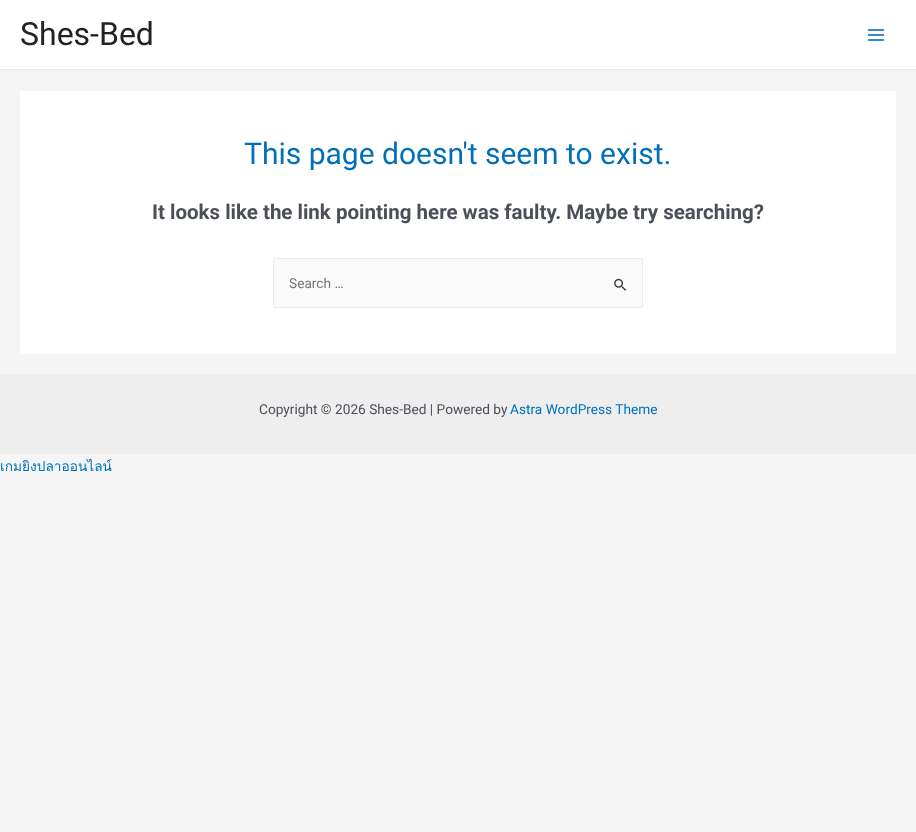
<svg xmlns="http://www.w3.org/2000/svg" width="916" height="832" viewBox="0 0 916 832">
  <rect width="100%" height="100%" fill="rgb(245,245,245)"/>
  <rect x="0" y="0" width="916" height="69" fill="rgb(255,255,255)"/>
  <rect x="0" y="69" width="916" height="1" fill="rgb(234,234,234)"/>
  <text x="20" y="45" font-family="Roboto" font-size="32" fill="rgb(34,34,34)">Shes-Bed</text>
  <image x="867" y="29" width="18" height="12" href="pic1.png"/>
  <rect x="20" y="91" width="876" height="263" fill="rgb(255,255,255)"/>
  <text x="244" y="164" font-family="Roboto" font-size="30" fill="rgb(1,112,185)">This page doesn't seem to exist.</text>
  <text x="152" y="219" font-family="Roboto" font-size="20.5" font-weight="bold" fill="rgb(75,79,88)">It looks like the link pointing here was faulty. Maybe try searching?</text>
  <rect x="273.5" y="258.5" width="369" height="49" rx="1.5" fill="rgb(250,250,250)" stroke="rgb(234,234,234)"/>
  <text x="289" y="288" font-family="Roboto" font-size="13.7" fill="rgb(117,117,117)">Search …</text>
  <image x="614" y="278" width="12" height="13" href="pic2.png"/>
  <rect x="0" y="374" width="916" height="80" fill="rgb(238,238,238)"/>
  <text x="259" y="414" font-family="Roboto" font-size="13.7" fill="rgb(75,79,88)">Copyright © 2026 Shes-Bed | Powered by</text>
  <text x="510" y="414" font-family="Roboto" font-size="13.7" fill="rgb(1,112,185)">Astra WordPress Theme</text>
  <text x="0" y="471" font-family="Loma" font-size="13.7" fill="rgb(1,112,185)">เกมยิงปลาออนไลน์</text>
</svg>
